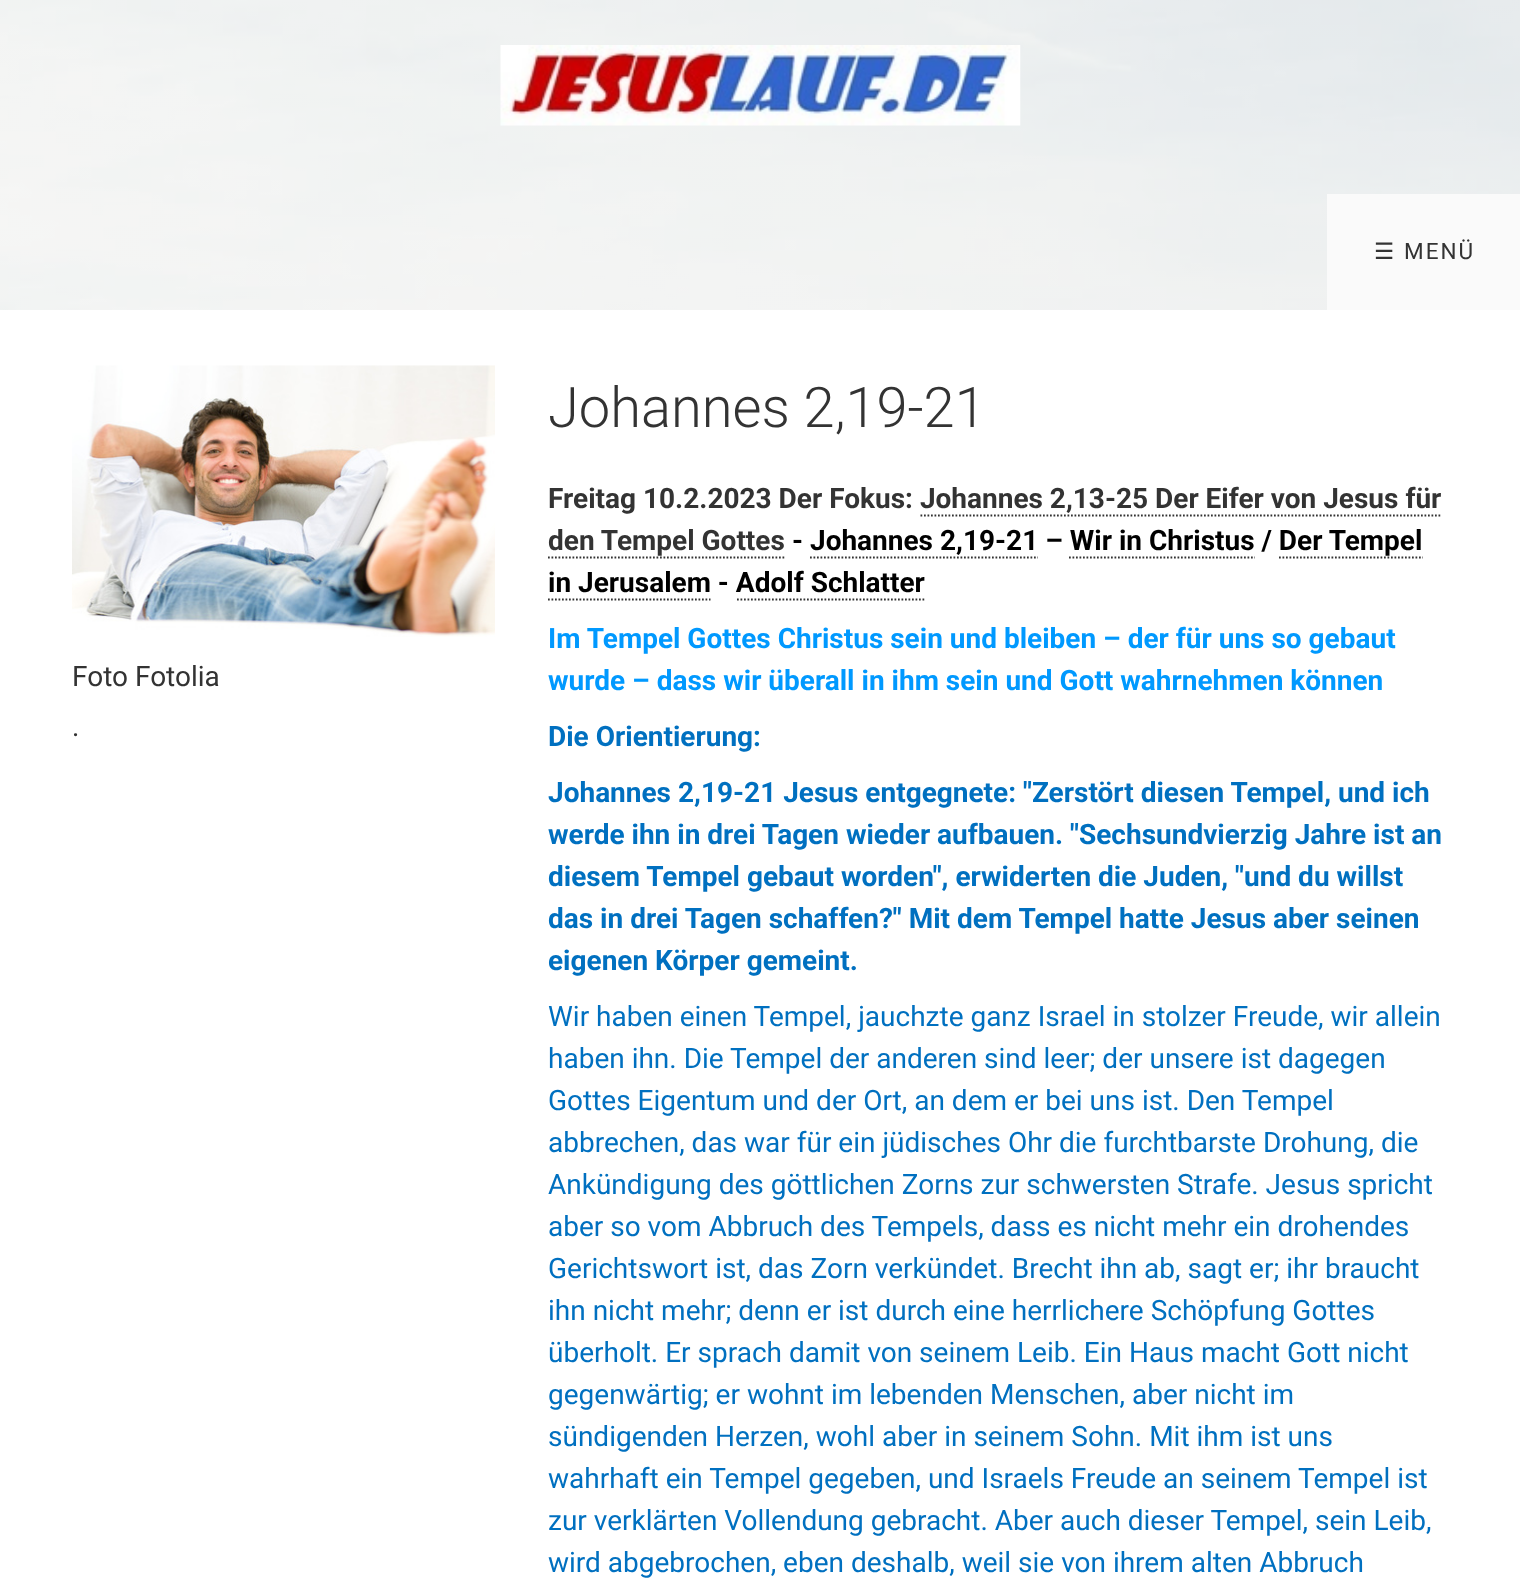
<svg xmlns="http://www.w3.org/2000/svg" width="1520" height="1586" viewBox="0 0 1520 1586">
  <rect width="100%" height="100%" fill="rgb(255,255,255)"/>
  <image x="0" y="0" width="1520" height="310" href="pic1.png"/>
  <image x="500" y="45" width="521" height="81" href="pic2.png"/>
  <rect x="1327" y="194" width="193" height="116" fill="rgb(250,250,250)"/>
  <text x="1374" y="259" font-family="DejaVu Sans" font-size="22.5" letter-spacing="2" fill="rgb(51,51,51)">☰</text>
  <text x="1404" y="259" font-family="Roboto" font-size="22.5" letter-spacing="2" fill="rgb(51,51,51)">MENÜ</text>
  <image x="72" y="365" width="423" height="272" href="pic3.png"/>
  <g font-family="Roboto" font-size="28" fill="rgb(51,51,51)">
    <text>
      <tspan x="72" y="686">Foto Fotolia</tspan>
      <tspan x="72" y="736">.</tspan>
    </text>
  </g>
  <text x="548" y="427" font-family="Roboto" font-size="56" font-weight="300" fill="rgb(51,51,51)">Johannes 2,19-21</text>
  <g font-family="Roboto" font-size="28" font-weight="bold" fill="rgb(51,51,51)">
    <text>
      <tspan x="548" y="508">Freitag 10.2.2023 Der Fokus: Johannes 2,13-25 Der Eifer von Jesus für</tspan>
      <tspan x="548" y="550">den Tempel Gottes</tspan>
    </text>
  </g>
  <path d="M920.5 515.5H1442" fill="none" stroke="rgb(51,51,51)" stroke-width="1.8" stroke-dasharray="1.75 1.75"/>
  <path d="M548 557.5H786" fill="none" stroke="rgb(51,51,51)" stroke-width="1.8" stroke-dasharray="1.75 1.75"/>
  <text x="792" y="550" font-family="Roboto" font-size="28" font-weight="bold" fill="rgb(0,0,0)">- Johannes 2,19-21 – Wir in Christus / Der Tempel</text>
  <path d="M810 557.5H1038" fill="none" stroke="rgb(51,51,51)" stroke-width="1.8" stroke-dasharray="1.75 1.75"/>
  <path d="M1069 557.5H1255" fill="none" stroke="rgb(51,51,51)" stroke-width="1.8" stroke-dasharray="1.75 1.75"/>
  <text x="548" y="592" font-family="Roboto" font-size="28" font-weight="bold" fill="rgb(0,0,0)">in Jerusalem - Adolf Schlatter</text>
  <path d="M1279 557.5H1423" fill="none" stroke="rgb(51,51,51)" stroke-width="1.8" stroke-dasharray="1.75 1.75"/>
  <path d="M548 599.5H710.5" fill="none" stroke="rgb(51,51,51)" stroke-width="1.8" stroke-dasharray="1.75 1.75"/>
  <path d="M737 599.5H926" fill="none" stroke="rgb(51,51,51)" stroke-width="1.8" stroke-dasharray="1.75 1.75"/>
  <g font-family="Roboto" font-size="28" font-weight="bold" fill="rgb(0,153,255)">
    <text>
      <tspan x="548" y="648">Im Tempel Gottes Christus sein und bleiben – der für uns so gebaut</tspan>
      <tspan x="548" y="690">wurde – dass wir überall in ihm sein und Gott wahrnehmen können</tspan>
    </text>
  </g>
  <g font-family="Roboto" font-size="28" font-weight="bold" fill="rgb(0,112,192)">
    <text x="548" y="746">Die Orientierung:</text>
    <text>
      <tspan x="548" y="802">Johannes 2,19-21 Jesus entgegnete: "Zerstört diesen Tempel, und ich</tspan>
      <tspan x="548" y="844">werde ihn in drei Tagen wieder aufbauen. "Sechsundvierzig Jahre ist an</tspan>
      <tspan x="548" y="886">diesem Tempel gebaut worden", erwiderten die Juden, "und du willst</tspan>
      <tspan x="548" y="928">das in drei Tagen schaffen?" Mit dem Tempel hatte Jesus aber seinen</tspan>
      <tspan x="548" y="970">eigenen Körper gemeint.</tspan>
    </text>
  </g>
  <g font-family="Roboto" font-size="28" fill="rgb(0,112,192)">
    <text>
      <tspan x="548" y="1026">Wir haben einen Tempel, jauchzte ganz Israel in stolzer Freude, wir allein</tspan>
      <tspan x="548" y="1068">haben ihn. Die Tempel der anderen sind leer; der unsere ist dagegen</tspan>
      <tspan x="548" y="1110">Gottes Eigentum und der Ort, an dem er bei uns ist. Den Tempel</tspan>
      <tspan x="548" y="1152">abbrechen, das war für ein jüdisches Ohr die furchtbarste Drohung, die</tspan>
      <tspan x="548" y="1194">Ankündigung des göttlichen Zorns zur schwersten Strafe. Jesus spricht</tspan>
      <tspan x="548" y="1236">aber so vom Abbruch des Tempels, dass es nicht mehr ein drohendes</tspan>
      <tspan x="548" y="1278">Gerichtswort ist, das Zorn verkündet. Brecht ihn ab, sagt er; ihr braucht</tspan>
      <tspan x="548" y="1320">ihn nicht mehr; denn er ist durch eine herrlichere Schöpfung Gottes</tspan>
      <tspan x="548" y="1362">überholt. Er sprach damit von seinem Leib. Ein Haus macht Gott nicht</tspan>
      <tspan x="548" y="1404">gegenwärtig; er wohnt im lebenden Menschen, aber nicht im</tspan>
      <tspan x="548" y="1446">sündigenden Herzen, wohl aber in seinem Sohn. Mit ihm ist uns</tspan>
      <tspan x="548" y="1488">wahrhaft ein Tempel gegeben, und Israels Freude an seinem Tempel ist</tspan>
      <tspan x="548" y="1530">zur verklärten Vollendung gebracht. Aber auch dieser Tempel, sein Leib,</tspan>
      <tspan x="548" y="1572">wird abgebrochen, eben deshalb, weil sie von ihrem alten Abbruch</tspan>
    </text>
  </g>
</svg>
